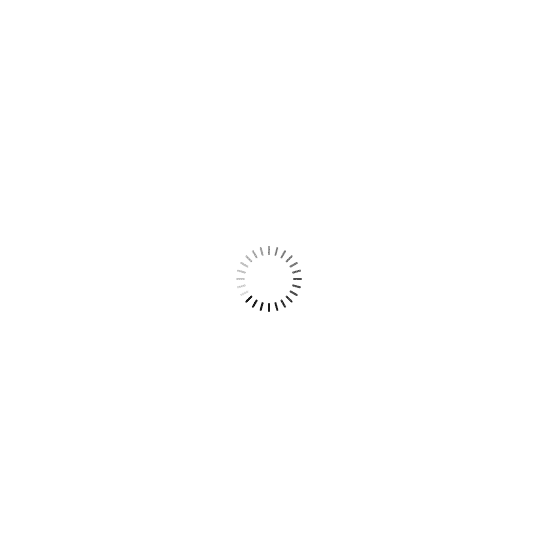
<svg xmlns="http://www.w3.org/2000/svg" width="538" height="558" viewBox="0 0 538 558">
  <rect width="100%" height="100%" fill="rgb(255,255,255)"/>
  <image x="236" y="246" width="66" height="66" href="pic1.png"/>
</svg>
